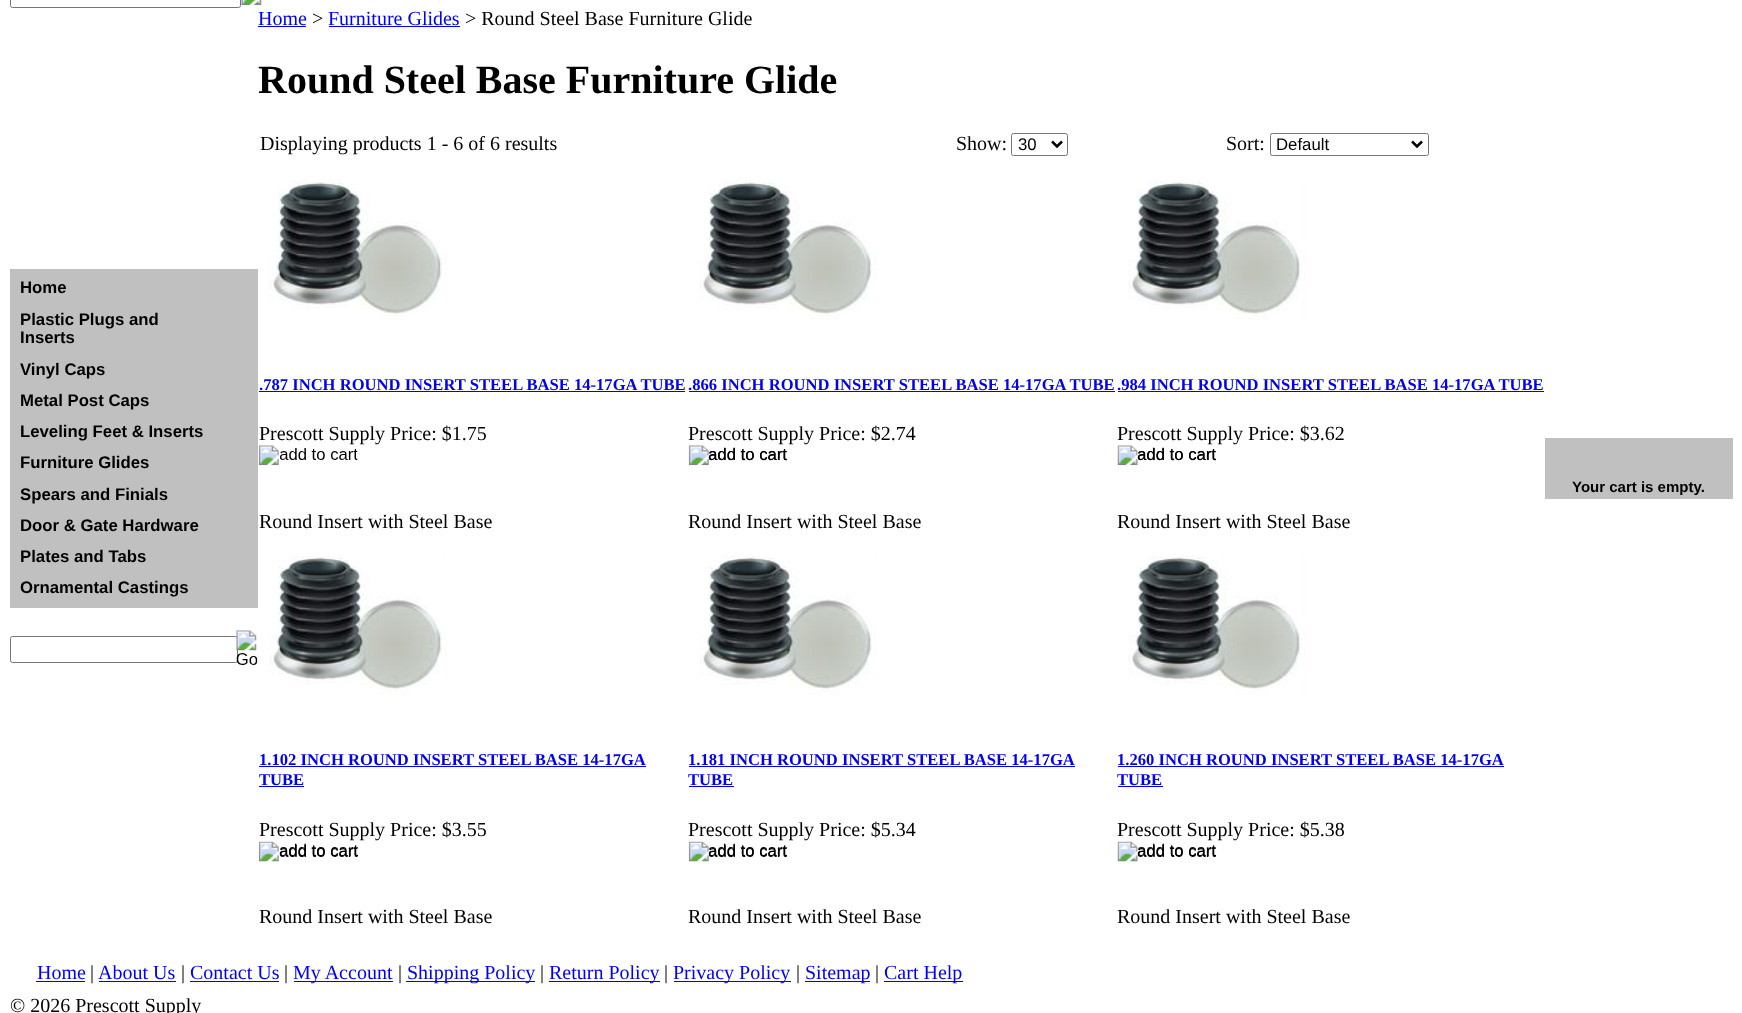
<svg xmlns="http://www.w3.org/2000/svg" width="1742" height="1013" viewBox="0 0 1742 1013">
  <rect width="100%" height="100%" fill="rgb(255,255,255)"/>
  <rect x="10.5" y="-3.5" width="230" height="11" rx="2" fill="none" stroke="rgb(118,118,118)"/>
  <image x="241" y="0" width="21" height="6" href="pic1.png"/>
  <rect x="10" y="269" width="248" height="339" fill="rgb(192,192,192)"/>
  <g font-family="Liberation Sans" font-size="16.75" font-weight="bold" fill="rgb(0,0,0)">
    <text>
      <tspan x="20" y="293">Home</tspan>
      <tspan x="20" y="325">Plastic Plugs and</tspan>
      <tspan x="20" y="343">Inserts</tspan>
      <tspan x="20" y="375">Vinyl Caps</tspan>
      <tspan x="20" y="406">Metal Post Caps</tspan>
      <tspan x="20" y="437">Leveling Feet &amp; Inserts</tspan>
      <tspan x="20" y="468">Furniture Glides</tspan>
      <tspan x="20" y="500">Spears and Finials</tspan>
      <tspan x="20" y="531">Door &amp; Gate Hardware</tspan>
      <tspan x="20" y="562">Plates and Tabs</tspan>
      <tspan x="20" y="593">Ornamental Castings</tspan>
    </text>
  </g>
  <rect x="10.5" y="636.5" width="227" height="26" rx="2" fill="none" stroke="rgb(118,118,118)"/>
  <image x="236" y="630" width="22" height="35" href="pic2.png"/>
  <text x="258" y="25" font-family="Liberation Serif" font-size="20" fill="rgb(0,0,238)">Home</text>
  <rect x="258" y="26" width="48" height="1" fill="rgb(0,0,238)"/>
  <text x="312" y="25" font-family="Liberation Serif" font-size="20" fill="rgb(0,0,0)">&gt;</text>
  <text x="328" y="25" font-family="Liberation Serif" font-size="20" fill="rgb(0,0,238)">Furniture Glides</text>
  <rect x="329" y="26" width="131" height="1" fill="rgb(0,0,238)"/>
  <text x="465" y="25" font-family="Liberation Serif" font-size="20" fill="rgb(0,0,0)">&gt; Round Steel Base Furniture Glide</text>
  <text x="258" y="93" font-family="Liberation Serif" font-size="40" font-weight="bold" fill="rgb(0,0,0)">Round Steel Base Furniture Glide</text>
  <g font-family="Liberation Serif" font-size="20" fill="rgb(0,0,0)">
    <text x="260" y="150">Displaying products 1 - 6 of 6 results</text>
    <text x="956" y="150">Show:</text>
  </g>
  <rect x="1011.5" y="133.5" width="56" height="22" rx="2" fill="none" stroke="rgb(118,118,118)"/>
  <path d="M1052 141.5L1057 146.5L1062 141.5" fill="none" stroke="rgb(0,0,0)" stroke-width="2.5"/>
  <text x="1018" y="150" font-family="Liberation Sans" font-size="16.75" fill="rgb(0,0,0)">30</text>
  <text x="1226" y="150" font-family="Liberation Serif" font-size="20" fill="rgb(0,0,0)">Sort:</text>
  <rect x="1270.5" y="133.5" width="158" height="22" rx="2" fill="none" stroke="rgb(118,118,118)"/>
  <path d="M1412 141.5L1417 146.5L1422 141.5" fill="none" stroke="rgb(0,0,0)" stroke-width="2.5"/>
  <text x="1276" y="150" font-family="Liberation Sans" font-size="16.75" fill="rgb(0,0,0)">Default</text>
  <image x="269" y="180" width="177" height="140" href="pic3.png"/>
  <text x="259" y="390" font-family="Liberation Serif" font-size="16.6" font-weight="bold" fill="rgb(0,0,238)">.787 INCH ROUND INSERT STEEL BASE 14-17GA TUBE</text>
  <rect x="259" y="391" width="426" height="1" fill="rgb(0,0,238)"/>
  <text x="259" y="440" font-family="Liberation Serif" font-size="20" fill="rgb(0,0,0)">Prescott Supply Price: $1.75</text>
  <image x="258" y="445" width="100" height="21" href="pic4.png"/>
  <text x="259" y="528" font-family="Liberation Serif" font-size="20" fill="rgb(0,0,0)">Round Insert with Steel Base</text>
  <image x="699" y="180" width="177" height="140" href="pic5.png"/>
  <text x="688" y="390" font-family="Liberation Serif" font-size="16.6" font-weight="bold" fill="rgb(0,0,238)">.866 INCH ROUND INSERT STEEL BASE 14-17GA TUBE</text>
  <rect x="689" y="391" width="426" height="1" fill="rgb(0,0,238)"/>
  <text x="688" y="440" font-family="Liberation Serif" font-size="20" fill="rgb(0,0,0)">Prescott Supply Price: $2.74</text>
  <image x="688" y="445" width="99" height="21" href="pic6.png"/>
  <text x="708" y="460" font-family="Liberation Sans" font-size="16.75" fill="rgb(0,0,0)">add to cart</text>
  <text x="688" y="528" font-family="Liberation Serif" font-size="20" fill="rgb(0,0,0)">Round Insert with Steel Base</text>
  <image x="1128" y="180" width="177" height="140" href="pic7.png"/>
  <text x="1117" y="390" font-family="Liberation Serif" font-size="16.6" font-weight="bold" fill="rgb(0,0,238)">.984 INCH ROUND INSERT STEEL BASE 14-17GA TUBE</text>
  <rect x="1118" y="391" width="426" height="1" fill="rgb(0,0,238)"/>
  <text x="1117" y="440" font-family="Liberation Serif" font-size="20" fill="rgb(0,0,0)">Prescott Supply Price: $3.62</text>
  <image x="1117" y="445" width="99" height="21" href="pic8.png"/>
  <text x="1137" y="460" font-family="Liberation Sans" font-size="16.75" fill="rgb(0,0,0)">add to cart</text>
  <text x="1117" y="528" font-family="Liberation Serif" font-size="20" fill="rgb(0,0,0)">Round Insert with Steel Base</text>
  <image x="269" y="555" width="177" height="140" href="pic9.png"/>
  <text x="259" y="765" font-family="Liberation Serif" font-size="16.6" font-weight="bold" fill="rgb(0,0,238)">1.102 INCH ROUND INSERT STEEL BASE 14-17GA</text>
  <rect x="259" y="766" width="387" height="1" fill="rgb(0,0,238)"/>
  <text x="259" y="785" font-family="Liberation Serif" font-size="16.6" font-weight="bold" fill="rgb(0,0,238)">TUBE</text>
  <rect x="259" y="786" width="45" height="1" fill="rgb(0,0,238)"/>
  <text x="259" y="836" font-family="Liberation Serif" font-size="20" fill="rgb(0,0,0)">Prescott Supply Price: $3.55</text>
  <image x="258" y="841" width="100" height="21" href="pic10.png"/>
  <text x="279" y="856" font-family="Liberation Sans" font-size="16.75" fill="rgb(0,0,0)">add to cart</text>
  <text x="259" y="923" font-family="Liberation Serif" font-size="20" fill="rgb(0,0,0)">Round Insert with Steel Base</text>
  <image x="699" y="555" width="177" height="140" href="pic11.png"/>
  <text x="688" y="765" font-family="Liberation Serif" font-size="16.6" font-weight="bold" fill="rgb(0,0,238)">1.181 INCH ROUND INSERT STEEL BASE 14-17GA</text>
  <rect x="689" y="766" width="386" height="1" fill="rgb(0,0,238)"/>
  <text x="688" y="785" font-family="Liberation Serif" font-size="16.6" font-weight="bold" fill="rgb(0,0,238)">TUBE</text>
  <rect x="689" y="786" width="45" height="1" fill="rgb(0,0,238)"/>
  <text x="688" y="836" font-family="Liberation Serif" font-size="20" fill="rgb(0,0,0)">Prescott Supply Price: $5.34</text>
  <image x="688" y="841" width="99" height="21" href="pic12.png"/>
  <text x="708" y="856" font-family="Liberation Sans" font-size="16.75" fill="rgb(0,0,0)">add to cart</text>
  <text x="688" y="923" font-family="Liberation Serif" font-size="20" fill="rgb(0,0,0)">Round Insert with Steel Base</text>
  <image x="1128" y="555" width="177" height="140" href="pic13.png"/>
  <text x="1117" y="765" font-family="Liberation Serif" font-size="16.6" font-weight="bold" fill="rgb(0,0,238)">1.260 INCH ROUND INSERT STEEL BASE 14-17GA</text>
  <rect x="1118" y="766" width="386" height="1" fill="rgb(0,0,238)"/>
  <text x="1117" y="785" font-family="Liberation Serif" font-size="16.6" font-weight="bold" fill="rgb(0,0,238)">TUBE</text>
  <rect x="1118" y="786" width="45" height="1" fill="rgb(0,0,238)"/>
  <text x="1117" y="836" font-family="Liberation Serif" font-size="20" fill="rgb(0,0,0)">Prescott Supply Price: $5.38</text>
  <image x="1117" y="841" width="99" height="21" href="pic14.png"/>
  <text x="1137" y="856" font-family="Liberation Sans" font-size="16.75" fill="rgb(0,0,0)">add to cart</text>
  <text x="1117" y="923" font-family="Liberation Serif" font-size="20" fill="rgb(0,0,0)">Round Insert with Steel Base</text>
  <rect x="1545" y="438" width="188" height="61" fill="rgb(192,192,192)"/>
  <text x="1572" y="492" font-family="Liberation Sans" font-size="15" font-weight="bold" fill="rgb(0,0,0)">Your cart is empty.</text>
  <text x="37" y="979" font-family="Liberation Serif" font-size="20" fill="rgb(0,0,238)">Home</text>
  <rect x="36" y="981" width="49" height="1" fill="rgb(0,0,238)"/>
  <text x="90" y="979" font-family="Liberation Serif" font-size="20" fill="rgb(0,0,0)">|</text>
  <text x="98" y="979" font-family="Liberation Serif" font-size="20" fill="rgb(0,0,238)">About Us</text>
  <rect x="99" y="981" width="77" height="1" fill="rgb(0,0,238)"/>
  <text x="181" y="979" font-family="Liberation Serif" font-size="20" fill="rgb(0,0,0)">|</text>
  <text x="190" y="979" font-family="Liberation Serif" font-size="20" fill="rgb(0,0,238)">Contact Us</text>
  <rect x="190" y="981" width="89" height="1" fill="rgb(0,0,238)"/>
  <text x="284" y="979" font-family="Liberation Serif" font-size="20" fill="rgb(0,0,0)">|</text>
  <rect x="294" y="981" width="99" height="1" fill="rgb(0,0,238)"/>
  <text x="293" y="979" font-family="Liberation Serif" font-size="20" fill="rgb(0,0,238)">My Account</text>
  <text x="398" y="979" font-family="Liberation Serif" font-size="20" fill="rgb(0,0,0)">|</text>
  <rect x="406" y="981" width="129" height="1" fill="rgb(0,0,238)"/>
  <text x="407" y="979" font-family="Liberation Serif" font-size="20" fill="rgb(0,0,238)">Shipping Policy</text>
  <text x="540" y="979" font-family="Liberation Serif" font-size="20" fill="rgb(0,0,0)">|</text>
  <rect x="549" y="981" width="111" height="1" fill="rgb(0,0,238)"/>
  <text x="549" y="979" font-family="Liberation Serif" font-size="20" fill="rgb(0,0,238)">Return Policy</text>
  <text x="664" y="979" font-family="Liberation Serif" font-size="20" fill="rgb(0,0,0)">|</text>
  <rect x="674" y="981" width="117" height="1" fill="rgb(0,0,238)"/>
  <text x="673" y="979" font-family="Liberation Serif" font-size="20" fill="rgb(0,0,238)">Privacy Policy</text>
  <text x="796" y="979" font-family="Liberation Serif" font-size="20" fill="rgb(0,0,0)">|</text>
  <rect x="805" y="981" width="65" height="1" fill="rgb(0,0,238)"/>
  <text x="805" y="979" font-family="Liberation Serif" font-size="20" fill="rgb(0,0,238)">Sitemap</text>
  <text x="875" y="979" font-family="Liberation Serif" font-size="20" fill="rgb(0,0,0)">|</text>
  <rect x="884" y="981" width="79" height="1" fill="rgb(0,0,238)"/>
  <text x="884" y="979" font-family="Liberation Serif" font-size="20" fill="rgb(0,0,238)">Cart Help</text>
  <text x="10" y="1012" font-family="Liberation Serif" font-size="20" fill="rgb(0,0,0)">© 2026 Prescott Supply</text>
</svg>
